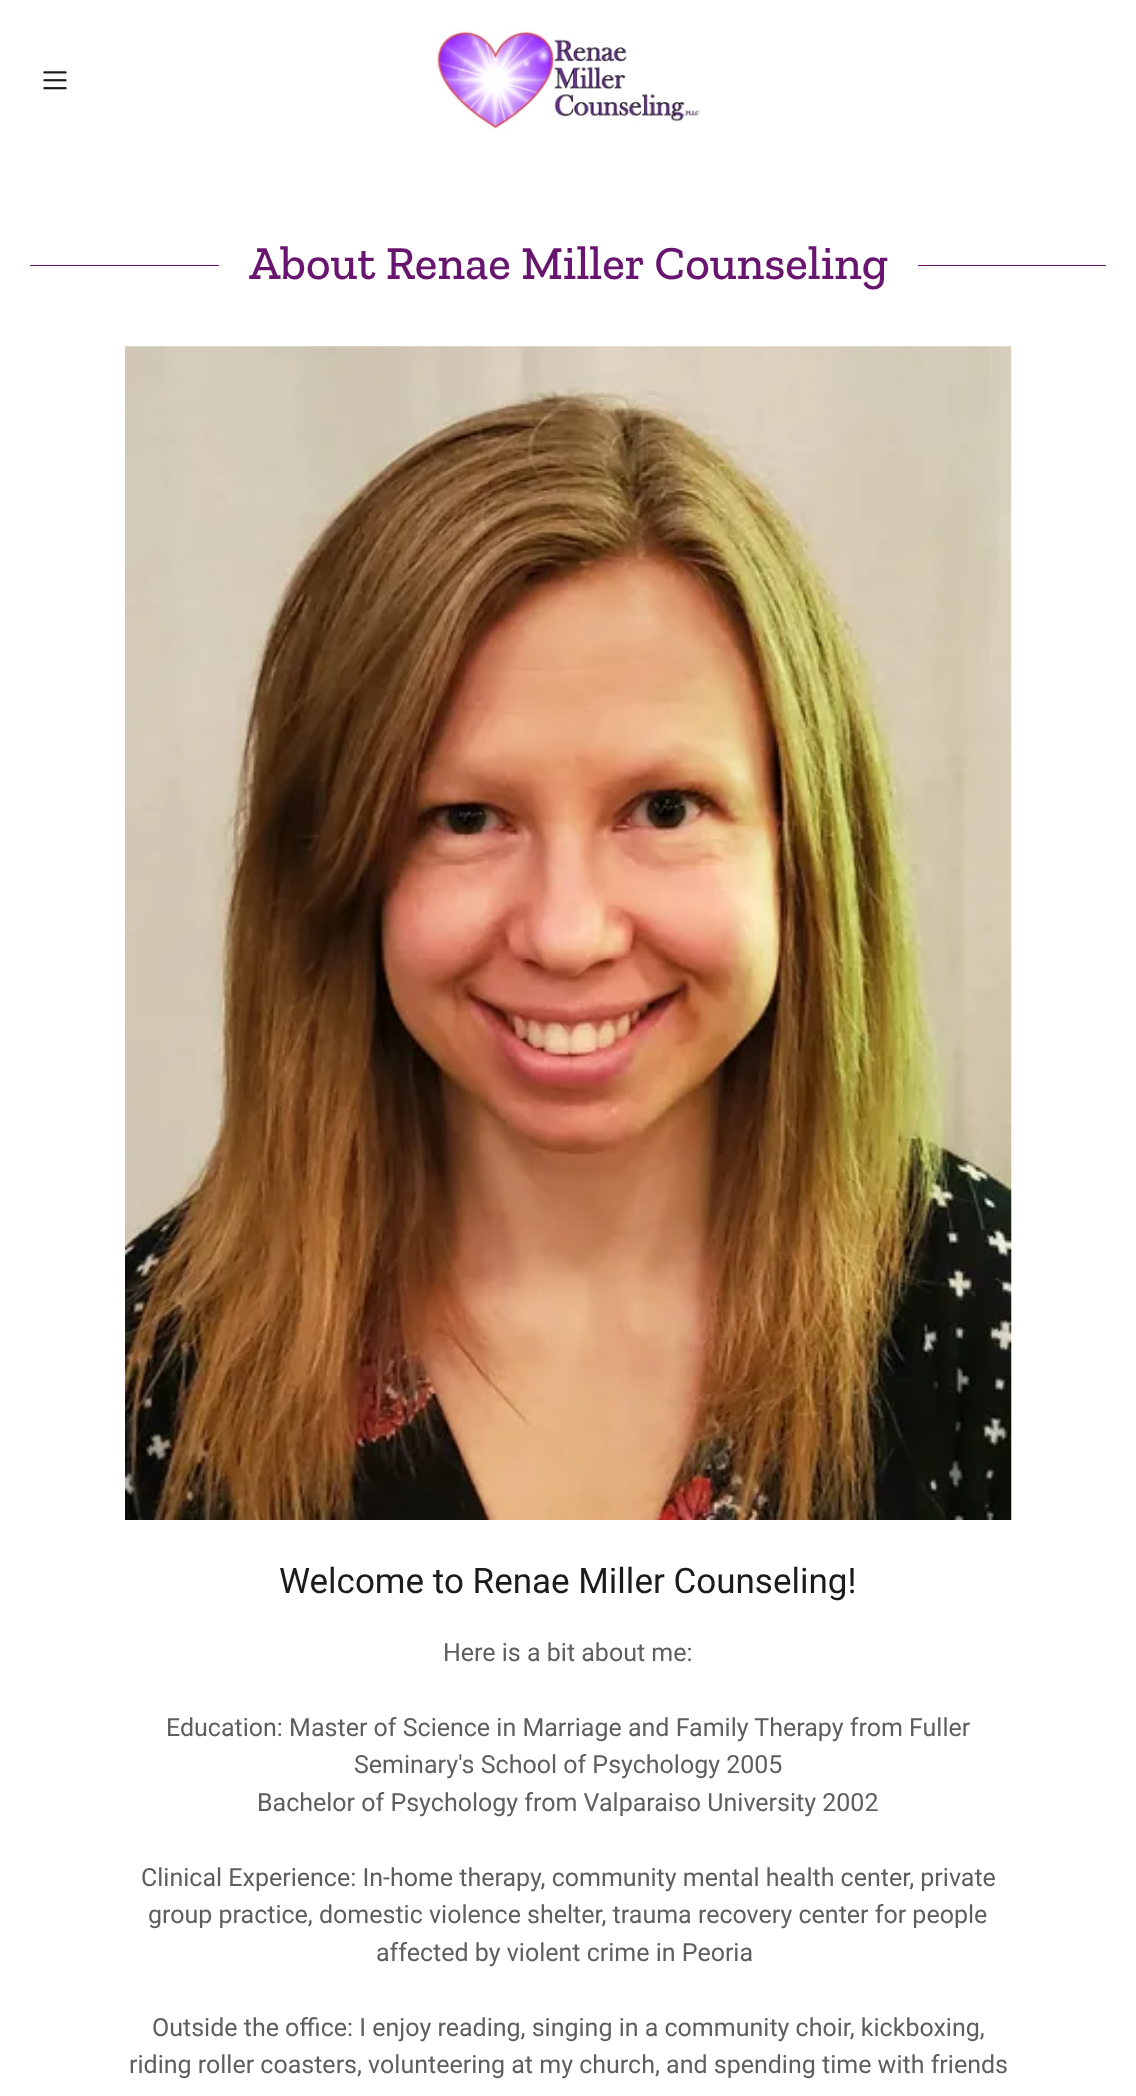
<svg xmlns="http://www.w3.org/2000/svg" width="1136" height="2096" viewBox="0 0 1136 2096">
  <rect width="100%" height="100%" fill="rgb(255,255,255)"/>
  <image x="43" y="71" width="24" height="19" href="pic1.png"/>
  <image x="434" y="30" width="266" height="100" href="pic2.png"/>
  <rect x="30" y="265" width="189" height="1" fill="rgb(103,21,110)"/>
  <text x="249" y="279" font-family="Zilla Slab" font-size="47.5" font-weight="500" fill="rgb(103,21,110)">About Renae Miller Counseling</text>
  <rect x="918" y="265" width="188" height="1" fill="rgb(103,21,110)"/>
  <image x="125" y="346" width="887" height="1174" href="pic3.png"/>
  <text x="279" y="1593" font-family="Roboto" font-size="35" fill="rgb(27,27,27)">Welcome to Renae Miller Counseling!</text>
  <g font-family="Roboto" font-size="25" fill="rgb(94,94,94)">
    <text x="443" y="1661">Here is a bit about me:</text>
    <text x="166" y="1736">Education: Master of Science in Marriage and Family Therapy from Fuller</text>
    <text x="354" y="1773">Seminary's School of Psychology 2005</text>
    <text x="257" y="1811">Bachelor of Psychology from Valparaiso University 2002</text>
    <text x="141" y="1886">Clinical Experience: In-home therapy, community mental health center, private</text>
    <text x="148" y="1923">group practice, domestic violence shelter, trauma recovery center for people</text>
    <text x="376" y="1961">affected by violent crime in Peoria</text>
    <text x="152" y="2036">Outside the office: I enjoy reading, singing in a community choir, kickboxing,</text>
    <text x="129" y="2073">riding roller coasters, volunteering at my church, and spending time with friends</text>
  </g>
</svg>
